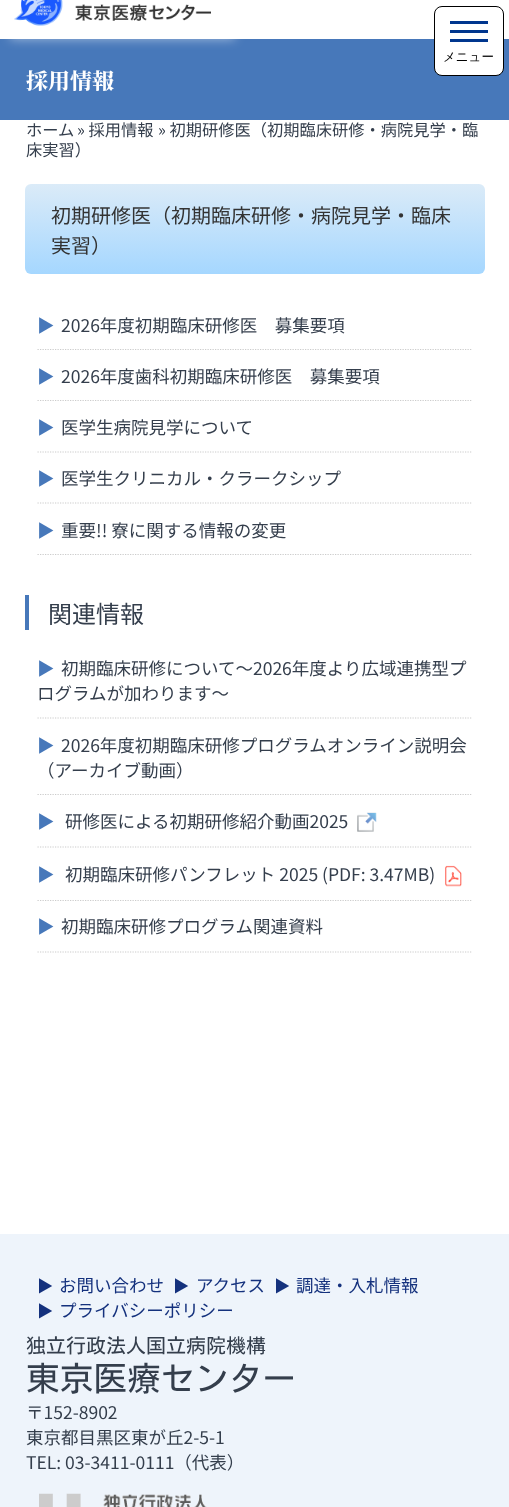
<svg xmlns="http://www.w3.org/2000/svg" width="509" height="1507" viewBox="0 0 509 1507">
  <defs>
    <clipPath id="clip1"><path d="M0 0H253V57H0ZM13-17H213V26H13Z" clip-rule="evenodd"/></clipPath>
    <linearGradient id="g1" gradientUnits="userSpaceOnUse" x1="255" y1="184" x2="255" y2="274"><stop offset="0" stop-color="rgb(219,235,248)"/><stop offset="1" stop-color="rgb(165,215,255)"/></linearGradient>
  </defs>
  <rect width="100%" height="100%" fill="rgb(255,255,255)"/>
  <rect x="0" y="39" width="509" height="81" fill="rgb(71,120,186)"/>
  <g clip-path="url(#clip1)">
    <rect x="10" y="-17" width="225" height="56" fill="rgba(255,255,255,0.51)" filter="blur(5.5px)"/>
  </g>
  <image x="14" y="0" width="197" height="26" href="pic1.png"/>
  <rect x="434.5" y="6.5" width="69" height="69" rx="7.5" fill="rgb(255,255,255)" stroke="rgb(0,0,0)"/>
  <rect x="450" y="30" width="38" height="3" fill="rgb(0,54,142)"/>
  <rect x="450" y="21" width="38" height="3" fill="rgb(0,54,142)"/>
  <rect x="450" y="39" width="38" height="3" fill="rgb(0,54,142)"/>
  <text x="443" y="61" font-family="WenQuanYi Zen Hei" font-size="12.5" font-weight="500" fill="rgb(0,0,0)">メニュー</text>
  <text x="26" y="89" font-family="Noto Serif JP" font-size="22" font-weight="800" fill="rgb(255,255,255)">採用情報</text>
  <g font-family="Noto Sans JP" font-size="16.25" fill="rgb(52,62,76)">
    <text x="26" y="136">ホーム</text>
    <text x="77" y="136">» 採用情報</text>
    <text x="158" y="136">» 初期研修医（初期臨床研修・病院見学・臨</text>
    <text x="26" y="156">床実習）</text>
  </g>
  <rect x="25" y="184" width="460" height="90" rx="6" fill="url(#g1)"/>
  <g font-family="Noto Sans JP" font-size="20" fill="rgb(51,51,51)">
    <text>
      <tspan x="51" y="223">初期研修医（初期臨床研修・病院見学・臨床</tspan>
      <tspan x="51" y="253">実習）</tspan>
    </text>
  </g>
  <path d="M37.5 349.5H472.5" fill="none" stroke="rgb(204,204,204)" stroke-width="1.2" stroke-dasharray="1.25 1.25"/>
  <text x="37" y="332" font-family="Noto Sans JP" font-size="17.5" fill="rgb(71,120,186)">▶</text>
  <text x="61" y="332" font-family="Noto Sans JP" font-size="17.5" fill="rgb(52,62,76)">2026年度初期臨床研修医　募集要項</text>
  <path d="M37.5 400.5H472.5" fill="none" stroke="rgb(204,204,204)" stroke-width="1.2" stroke-dasharray="1.25 1.25"/>
  <text x="37" y="383" font-family="Noto Sans JP" font-size="17.5" fill="rgb(71,120,186)">▶</text>
  <text x="61" y="383" font-family="Noto Sans JP" font-size="17.5" fill="rgb(52,62,76)">2026年度歯科初期臨床研修医　募集要項</text>
  <path d="M37.5 452H472.5" fill="none" stroke="rgb(204,204,204)" stroke-width="1.2" stroke-dasharray="1.25 1.25"/>
  <text x="37" y="434" font-family="Noto Sans JP" font-size="17.5" fill="rgb(71,120,186)">▶</text>
  <text x="61" y="434" font-family="Noto Sans JP" font-size="17.5" fill="rgb(52,62,76)">医学生病院見学について</text>
  <path d="M37.5 503H472.5" fill="none" stroke="rgb(204,204,204)" stroke-width="1.2" stroke-dasharray="1.25 1.25"/>
  <text x="37" y="485" font-family="Noto Sans JP" font-size="17.5" fill="rgb(71,120,186)">▶</text>
  <text x="61" y="485" font-family="Noto Sans JP" font-size="17.5" fill="rgb(52,62,76)">医学生クリニカル・クラークシップ</text>
  <path d="M37.5 554.5H472.5" fill="none" stroke="rgb(204,204,204)" stroke-width="1.2" stroke-dasharray="1.25 1.25"/>
  <text x="37" y="537" font-family="Noto Sans JP" font-size="17.5" fill="rgb(71,120,186)">▶</text>
  <text x="61" y="537" font-family="Noto Sans JP" font-size="17.5" fill="rgb(52,62,76)">重要!! 寮に関する情報の変更</text>
  <rect x="25" y="595" width="4" height="35" fill="rgb(71,120,186)"/>
  <text x="48" y="623" font-family="Noto Sans JP" font-size="24" fill="rgb(52,62,76)">関連情報</text>
  <path d="M37.5 718H472.5" fill="none" stroke="rgb(204,204,204)" stroke-width="1.2" stroke-dasharray="1.25 1.25"/>
  <text x="37" y="675" font-family="Noto Sans JP" font-size="17.5" fill="rgb(71,120,186)">▶</text>
  <g font-family="Noto Sans JP" font-size="17.5" fill="rgb(52,62,76)">
    <text x="61" y="675">初期臨床研修について～2026年度より広域連携型プ</text>
    <text x="37" y="700">ログラムが加わります～</text>
  </g>
  <path d="M37.5 794.5H472.5" fill="none" stroke="rgb(204,204,204)" stroke-width="1.2" stroke-dasharray="1.25 1.25"/>
  <text x="37" y="752" font-family="Noto Sans JP" font-size="17.5" fill="rgb(71,120,186)">▶</text>
  <g font-family="Noto Sans JP" font-size="17.5" fill="rgb(52,62,76)">
    <text x="61" y="752">2026年度初期臨床研修プログラムオンライン説明会</text>
    <text x="37" y="777">（アーカイブ動画）</text>
  </g>
  <path d="M37.5 847H472.5" fill="none" stroke="rgb(204,204,204)" stroke-width="1.2" stroke-dasharray="1.25 1.25"/>
  <text x="37" y="828" font-family="Noto Sans JP" font-size="17.5" fill="rgb(71,120,186)">▶</text>
  <text x="65" y="828" font-family="Noto Sans JP" font-size="17.5" fill="rgb(52,62,76)">研修医による初期研修紹介動画2025</text>
  <image x="357" y="812" width="20" height="20" href="pic2.png"/>
  <path d="M37.5 900.5H472.5" fill="none" stroke="rgb(204,204,204)" stroke-width="1.2" stroke-dasharray="1.25 1.25"/>
  <text x="37" y="881" font-family="Noto Sans JP" font-size="17.5" fill="rgb(71,120,186)">▶</text>
  <text x="65" y="881" font-family="Noto Sans JP" font-size="17.5" fill="rgb(52,62,76)">初期臨床研修パンフレット 2025 (PDF: 3.47MB)</text>
  <image x="445" y="865" width="17" height="22" href="pic3.png"/>
  <path d="M37.5 952H472.5" fill="none" stroke="rgb(204,204,204)" stroke-width="1.2" stroke-dasharray="1.25 1.25"/>
  <text x="37" y="933" font-family="Noto Sans JP" font-size="17.5" fill="rgb(71,120,186)">▶</text>
  <text x="61" y="933" font-family="Noto Sans JP" font-size="17.5" fill="rgb(52,62,76)">初期臨床研修プログラム関連資料</text>
  <rect x="0" y="1234" width="509" height="273" fill="rgb(238,244,251)"/>
  <text x="37" y="1292" font-family="Noto Sans JP" font-size="16.25" fill="rgb(20,49,125)">▶</text>
  <text x="59" y="1292" font-family="Noto Sans JP" font-size="17.5" fill="rgb(20,49,125)">お問い合わせ</text>
  <text x="173" y="1292" font-family="Noto Sans JP" font-size="16.25" fill="rgb(20,49,125)">▶</text>
  <text x="196" y="1292" font-family="Noto Sans JP" font-size="17.5" fill="rgb(20,49,125)">アクセス</text>
  <text x="274" y="1292" font-family="Noto Sans JP" font-size="16.25" fill="rgb(20,49,125)">▶</text>
  <text x="296" y="1292" font-family="Noto Sans JP" font-size="17.5" fill="rgb(20,49,125)">調達・入札情報</text>
  <text x="37" y="1317" font-family="Noto Sans JP" font-size="16.25" fill="rgb(20,49,125)">▶</text>
  <text x="59" y="1317" font-family="Noto Sans JP" font-size="17.5" fill="rgb(20,49,125)">プライバシーポリシー</text>
  <text x="26" y="1353" font-family="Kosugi" font-size="20" fill="rgb(52,62,76)">独立行政法人国立病院機構</text>
  <text x="26" y="1391" font-family="Kosugi" font-size="33.75" fill="rgb(52,62,76)">東京医療センター</text>
  <g font-family="Noto Sans JP" font-size="17.5" fill="rgb(52,62,76)">
    <text>
      <tspan x="26" y="1419">〒152-8902</tspan>
      <tspan x="26" y="1444">東京都目黒区東が丘2-5-1</tspan>
      <tspan x="26" y="1469">TEL: 03-3411-0111（代表）</tspan>
    </text>
  </g>
  <image x="39" y="1493" width="168" height="14" href="pic4.png"/>
</svg>
